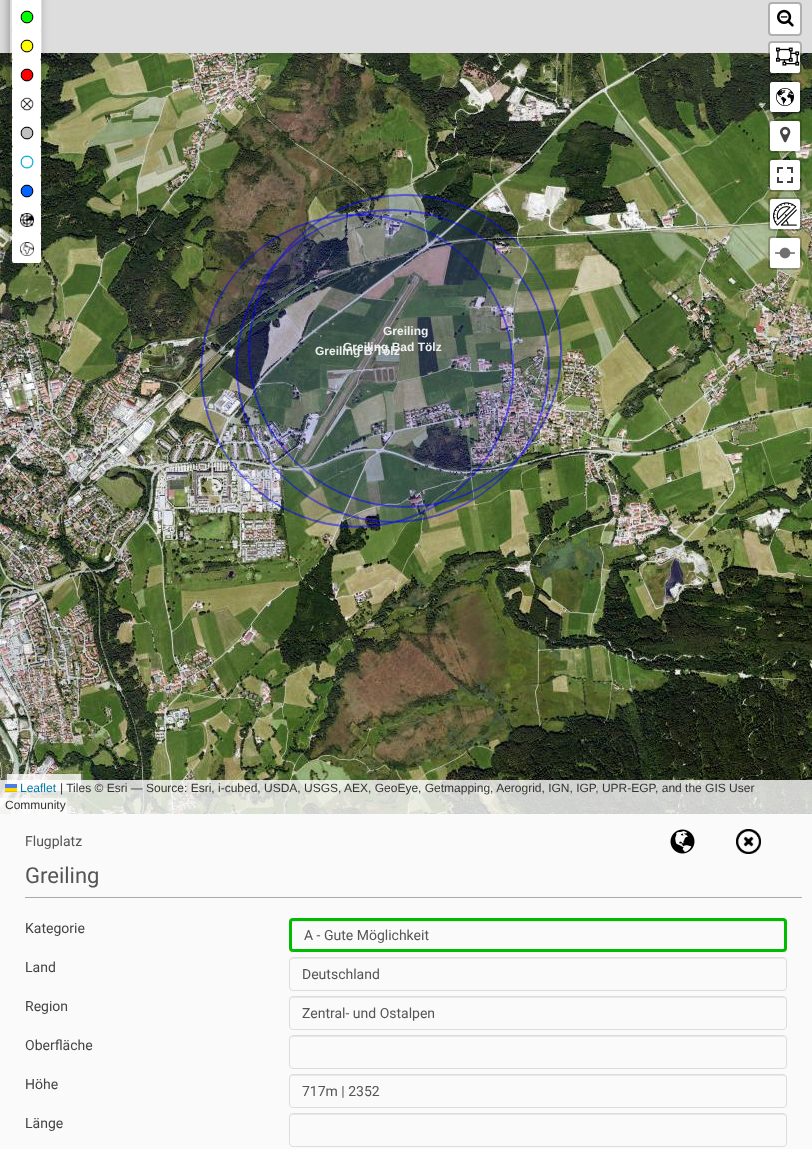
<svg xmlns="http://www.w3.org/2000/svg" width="812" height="1149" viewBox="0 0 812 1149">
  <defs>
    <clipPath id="clip1"><path d="M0 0H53V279H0ZM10-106H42V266H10Z" clip-rule="evenodd"/></clipPath>
    <clipPath id="clip2"><rect x="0" y="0" width="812" height="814"/></clipPath>
    <clipPath id="clip3"><path d="M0 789H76V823H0ZM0 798H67V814H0Z" clip-rule="evenodd"/></clipPath>
  </defs>
  <rect width="100%" height="100%" fill="rgb(250,250,250)"/>
  <rect x="0" y="0" width="812" height="53" fill="rgb(221,221,221)"/>
  <image x="0" y="53" width="175" height="256" href="pic1.png"/>
  <image x="175" y="53" width="256" height="256" href="pic2.png"/>
  <image x="431" y="53" width="256" height="256" href="pic3.png"/>
  <image x="687" y="53" width="125" height="256" href="pic4.png"/>
  <image x="0" y="309" width="175" height="256" href="pic5.png"/>
  <image x="175" y="309" width="256" height="256" href="pic6.png"/>
  <image x="431" y="309" width="256" height="256" href="pic7.png"/>
  <image x="687" y="309" width="125" height="256" href="pic8.png"/>
  <image x="0" y="565" width="175" height="249" href="pic9.png"/>
  <image x="175" y="565" width="256" height="249" href="pic10.png"/>
  <image x="431" y="565" width="256" height="249" href="pic11.png"/>
  <image x="687" y="565" width="125" height="249" href="pic12.png"/>
  <image x="200" y="194" width="363" height="334" href="pic13.png"/>
  <g font-family="Liberation Sans" font-size="12" font-weight="bold" fill="rgb(238,239,239)">
    <text x="383" y="335">Greiling</text>
    <text x="343" y="351">Greiling Bad Tölz</text>
    <text x="315" y="355">Greiling B Tölz</text>
  </g>
  <g clip-path="url(#clip1)">
    <rect x="8" y="-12" width="32" height="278" fill="rgba(0,0,0,0.3)" filter="blur(4px)"/>
  </g>
  <rect x="12" y="-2" width="29" height="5" rx="2" fill="rgb(255,255,255)"/>
  <rect x="12" y="1" width="29" height="30" rx="2" fill="rgb(255,255,255)"/>
  <image x="20" y="10" width="14" height="14" href="pic14.png"/>
  <rect x="12" y="30" width="29" height="30" rx="2" fill="rgb(255,255,255)"/>
  <image x="20" y="39" width="14" height="14" href="pic15.png"/>
  <rect x="12" y="59" width="29" height="30" rx="2" fill="rgb(255,255,255)"/>
  <image x="20" y="68" width="14" height="14" href="pic16.png"/>
  <rect x="12" y="88" width="29" height="30" rx="2" fill="rgb(255,255,255)"/>
  <image x="20" y="97" width="14" height="14" href="pic17.png"/>
  <rect x="12" y="117" width="29" height="30" rx="2" fill="rgb(255,255,255)"/>
  <image x="20" y="126" width="14" height="14" href="pic18.png"/>
  <rect x="12" y="146" width="29" height="30" rx="2" fill="rgb(255,255,255)"/>
  <image x="20" y="155" width="14" height="14" href="pic19.png"/>
  <rect x="12" y="175" width="29" height="30" rx="2" fill="rgb(255,255,255)"/>
  <image x="20" y="184" width="14" height="14" href="pic20.png"/>
  <rect x="12" y="204" width="29" height="30" rx="2" fill="rgb(255,255,255)"/>
  <image x="20" y="213" width="14" height="14" href="pic21.png"/>
  <rect x="12" y="233" width="29" height="30" rx="2" fill="rgb(255,255,255)"/>
  <image x="20" y="242" width="14" height="14" href="pic22.png"/>
  <rect x="770" y="4" width="30" height="30" rx="2" fill="rgb(255,255,255)"/>
  <rect x="769" y="3" width="32" height="32" rx="3" fill="none" stroke="rgba(0,0,0,0.2)" stroke-width="2"/>
  <image x="777" y="9" width="17" height="18" href="pic23.png"/>
  <rect x="770" y="43" width="30" height="30" rx="2" fill="rgb(255,255,255)"/>
  <rect x="769" y="42" width="32" height="32" rx="3" fill="none" stroke="rgba(0,0,0,0.2)" stroke-width="2"/>
  <rect x="770" y="43" width="30" height="30" rx="4" fill="rgb(255,255,255)"/>
  <image x="776" y="47" width="24" height="19" href="pic24.png"/>
  <rect x="770" y="82" width="30" height="30" rx="2" fill="rgb(255,255,255)"/>
  <rect x="769" y="81" width="32" height="32" rx="3" fill="none" stroke="rgba(0,0,0,0.2)" stroke-width="2"/>
  <rect x="770" y="82" width="30" height="30" rx="4" fill="rgb(255,255,255)"/>
  <image x="776" y="88" width="18" height="18" href="pic25.png"/>
  <rect x="769" y="120" width="32" height="32" rx="3" fill="none" stroke="rgba(0,0,0,0.2)" stroke-width="2"/>
  <rect x="770" y="121" width="30" height="30" rx="2" fill="rgb(255,255,255)"/>
  <image x="780" y="126" width="11" height="17" href="pic26.png"/>
  <rect x="769" y="159" width="32" height="32" rx="3" fill="none" stroke="rgba(0,0,0,0.2)" stroke-width="2"/>
  <rect x="770" y="160" width="30" height="30" rx="2" fill="rgb(255,255,255)"/>
  <image x="777" y="167" width="16" height="16" href="pic27.png"/>
  <rect x="770" y="199" width="30" height="30" rx="2" fill="rgb(255,255,255)"/>
  <image x="773" y="202" width="24" height="24" href="pic28.png"/>
  <rect x="769" y="198" width="32" height="32" rx="3" fill="none" stroke="rgba(0,0,0,0.2)" stroke-width="2"/>
  <rect x="770" y="238" width="30" height="30" rx="2" fill="rgb(255,255,255)"/>
  <rect x="769" y="237" width="32" height="32" rx="3" fill="none" stroke="rgba(0,0,0,0.2)" stroke-width="2"/>
  <path d="M774 238H796C798 238 800 240 800 242V266C800 267 799 268 798 268H772C771 268 770 267 770 266V242C770 240 772 238 774 238Z" fill="rgb(255,255,255)"/>
  <image x="775" y="247" width="20" height="12" href="pic29.png"/>
  <rect x="7" y="774" width="74" height="17" fill="rgba(255,255,255,0.8)"/>
  <rect x="81" y="774" width="2" height="19" fill="rgb(119,119,119)"/>
  <rect x="5" y="791" width="78" height="2" fill="rgb(119,119,119)"/>
  <rect x="5" y="774" width="2" height="19" fill="rgb(119,119,119)"/>
  <g clip-path="url(#clip2)">
    <g clip-path="url(#clip3)">
      <rect x="0" y="798" width="67" height="16" fill="rgb(187,187,187)" filter="blur(2.5px)"/>
    </g>
  </g>
  <rect x="0" y="798" width="67" height="16" fill="rgba(255,255,255,0.7)"/>
  <rect x="0" y="780" width="812" height="34" fill="rgba(255,255,255,0.8)"/>
  <text x="20" y="792" font-family="Liberation Sans" font-size="12" fill="rgb(0,120,168)">Leaflet</text>
  <rect x="5" y="784" width="12" height="4" fill="rgb(76,123,225)"/>
  <rect x="5" y="788" width="12" height="3" fill="rgb(255,213,0)"/>
  <rect x="5" y="791" width="12" height="1" fill="rgb(224,188,0)"/>
  <g font-family="Liberation Sans" font-size="12" fill="rgb(51,51,51)">
    <text x="60" y="792">| Tiles © Esri — Source: Esri, i-cubed, USDA, USGS, AEX, GeoEye, Getmapping, Aerogrid, IGN, IGP, UPR-EGP, and the GIS User</text>
    <text x="5" y="809">Community</text>
  </g>
  <text x="25" y="846" font-family="Roboto" font-size="14" fill="rgb(85,85,85)">Flugplatz</text>
  <image x="670" y="829" width="25" height="25" href="pic30.png"/>
  <image x="736" y="829" width="25" height="25" href="pic31.png"/>
  <text x="25" y="883" font-family="Roboto" font-size="22" fill="rgb(85,85,85)">Greiling</text>
  <rect x="25" y="897" width="777" height="1" fill="rgb(170,170,170)"/>
  <text x="25" y="933" font-family="Roboto" font-size="14" fill="rgb(68,68,68)">Kategorie</text>
  <path d="M293 922H783L784 924V921H783H293L292 923ZM784 948V949Z" fill="rgb(231,231,231)" fill-rule="evenodd"/>
  <rect x="290.5" y="919.5" width="495" height="31" rx="2.5" fill="none" stroke="rgb(0,187,0)" stroke-width="3"/>
  <text x="304" y="940" font-family="Roboto" font-size="14" fill="rgb(85,85,85)">A - Gute Möglichkeit</text>
  <text x="25" y="972" font-family="Roboto" font-size="14" fill="rgb(68,68,68)">Land</text>
  <path d="M293 959H783C785 959 786 960 786 962C786 960 785 958 783 958H293C291 958 290 960 290 962C290 960 291 959 293 959Z" fill="rgb(231,231,231)"/>
  <rect x="289.5" y="957.5" width="497" height="33" rx="3.5" fill="none" stroke="rgb(221,221,221)"/>
  <text x="302" y="979" font-family="Roboto" font-size="14" fill="rgb(85,85,85)">Deutschland</text>
  <text x="25" y="1011" font-family="Roboto" font-size="14" fill="rgb(68,68,68)">Region</text>
  <path d="M293 998H783C785 998 786 999 786 1001C786 999 785 997 783 997H293C291 997 290 999 290 1001C290 999 291 998 293 998Z" fill="rgb(231,231,231)"/>
  <rect x="289.5" y="996.5" width="497" height="33" rx="3.5" fill="none" stroke="rgb(221,221,221)"/>
  <text x="302" y="1018" font-family="Roboto" font-size="14" fill="rgb(85,85,85)">Zentral- und Ostalpen</text>
  <text x="25" y="1050" font-family="Roboto" font-size="14" fill="rgb(68,68,68)">Oberfläche</text>
  <path d="M293 1037H783C785 1037 786 1038 786 1040C786 1038 785 1036 783 1036H293C291 1036 290 1038 290 1040C290 1038 291 1037 293 1037Z" fill="rgb(231,231,231)"/>
  <rect x="289.5" y="1035.5" width="497" height="33" rx="3.5" fill="none" stroke="rgb(221,221,221)"/>
  <text x="25" y="1089" font-family="Roboto" font-size="14" fill="rgb(68,68,68)">Höhe</text>
  <path d="M293 1076H783C785 1076 786 1077 786 1079C786 1077 785 1075 783 1075H293C291 1075 290 1077 290 1079C290 1077 291 1076 293 1076Z" fill="rgb(231,231,231)"/>
  <rect x="289.5" y="1074.5" width="497" height="33" rx="3.5" fill="none" stroke="rgb(221,221,221)"/>
  <text x="302" y="1096" font-family="Roboto" font-size="14" fill="rgb(85,85,85)">717m | 2352</text>
  <text x="25" y="1128" font-family="Roboto" font-size="14" fill="rgb(68,68,68)">Länge</text>
  <path d="M293 1115H783C785 1115 786 1116 786 1118C786 1116 785 1114 783 1114H293C291 1114 290 1116 290 1118C290 1116 291 1115 293 1115Z" fill="rgb(231,231,231)"/>
  <rect x="289.5" y="1113.5" width="497" height="33" rx="3.5" fill="none" stroke="rgb(221,221,221)"/>
</svg>
